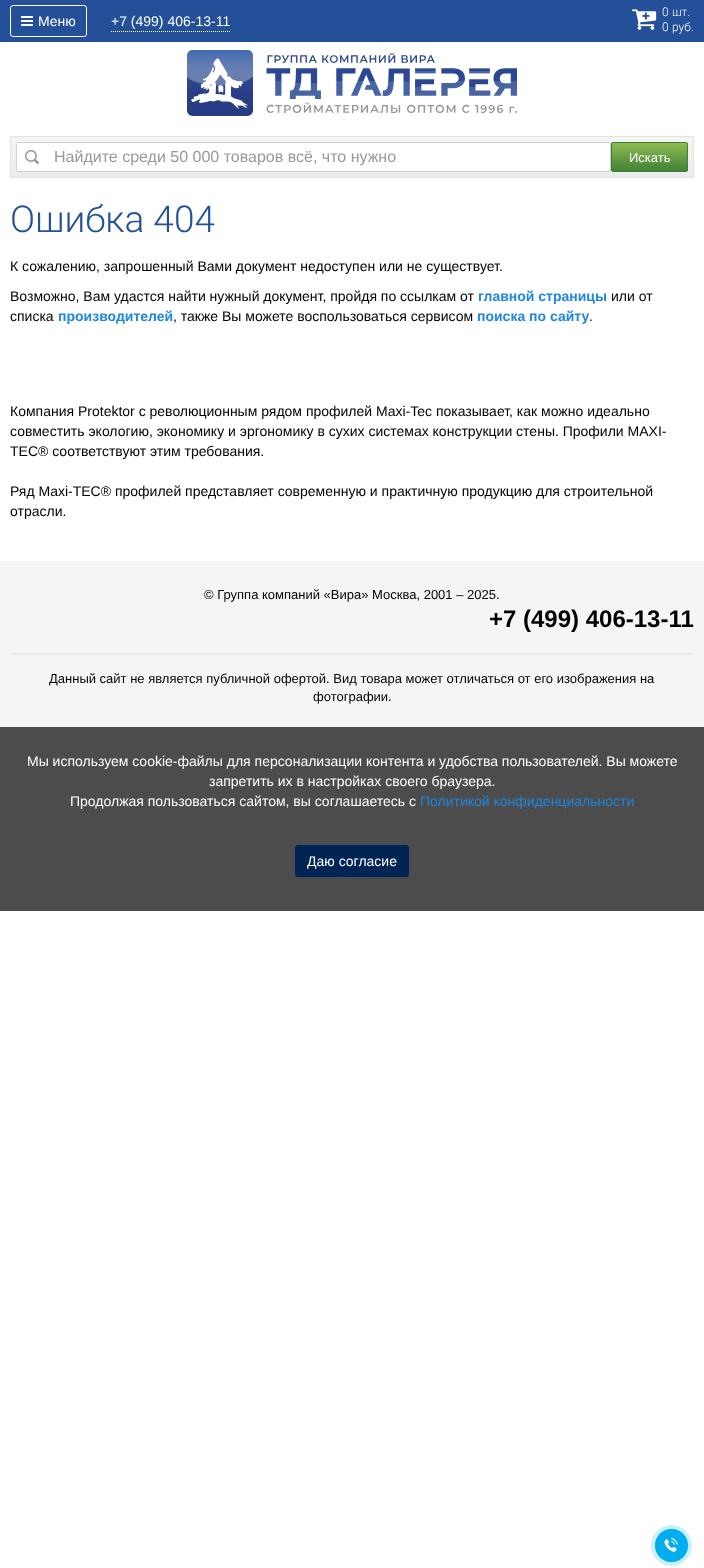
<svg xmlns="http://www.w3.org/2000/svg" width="704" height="1568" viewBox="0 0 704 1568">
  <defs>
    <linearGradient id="g1" gradientUnits="userSpaceOnUse" x1="352" y1="177" x2="352" y2="137"><stop offset="0" stop-color="rgb(235,235,235)"/><stop offset="1" stop-color="rgb(246,246,246)"/></linearGradient>
    <clipPath id="clip1"><rect x="611" y="142" width="77" height="30" rx="2"/></clipPath>
    <linearGradient id="g2" gradientUnits="userSpaceOnUse" x1="650" y1="171" x2="650" y2="143"><stop offset="0" stop-color="rgb(65,129,54)"/><stop offset="1" stop-color="rgb(141,188,81)"/></linearGradient>
  </defs>
  <rect width="100%" height="100%" fill="rgb(255,255,255)"/>
  <rect x="0" y="0" width="704" height="42" fill="rgb(35,80,153)"/>
  <rect x="10.5" y="5.5" width="76" height="31" rx="2.5" fill="none" stroke="rgb(255,255,255)"/>
  <image x="21" y="16" width="12" height="10" href="pic1.png"/>
  <text x="38" y="26" font-family="Liberation Sans" font-size="14" fill="rgb(255,255,255)">Меню</text>
  <path d="M111 31.5H230" fill="none" stroke="rgb(255,255,255)" stroke-dasharray="1 1"/>
  <text x="111" y="26" font-family="Liberation Sans" font-size="14" fill="rgb(255,255,255)">+7 (499) 406-13-11</text>
  <image x="632" y="9" width="25" height="21" href="pic2.png"/>
  <g font-family="Roboto" font-size="12" font-weight="300" fill="rgb(255,255,255)">
    <text x="662" y="16">0</text>
    <text x="672" y="16">шт.</text>
    <text x="662" y="31">0</text>
    <text x="672" y="31">руб.</text>
  </g>
  <image x="187" y="50" width="330" height="66" href="pic3.png"/>
  <rect x="11" y="137" width="682" height="40" fill="url(#g1)"/>
  <rect x="10.5" y="136.5" width="683" height="41" fill="none" stroke="rgb(227,227,227)"/>
  <path d="M18 142H611V172H18C17 172 16 171 16 170V144C16 143 17 142 18 142Z" fill="rgb(255,255,255)"/>
  <image x="25" y="150" width="14" height="14" href="pic4.png"/>
  <path d="M18 142.5H610.5V171.5H18C17 171.5 16.5 171 16.5 170V144C16.5 143 17 142.5 18 142.5Z" fill="none" stroke="rgb(207,207,207)"/>
  <text x="54" y="162" font-family="Liberation Sans" font-size="16" fill="rgb(153,153,153)">Найдите среди 50 000 товаров всё, что нужно</text>
  <g clip-path="url(#clip1)">
    <rect x="611" y="143" width="77" height="28" fill="url(#g2)"/>
  </g>
  <rect x="611.5" y="142.5" width="76" height="29" rx="1.5" fill="none" stroke="rgb(65,129,54)"/>
  <text x="629" y="162" font-family="Liberation Sans" font-size="13" fill="rgb(255,255,255)">Искать</text>
  <text x="10" y="232" font-family="Roboto" font-size="37" font-weight="300" fill="rgb(35,80,153)">Ошибка 404</text>
  <g font-family="Liberation Sans" font-size="14" fill="rgb(0,0,0)">
    <text x="10" y="271">К сожалению, запрошенный Вами документ недоступен или не существует.</text>
    <text x="10" y="301">Возможно, Вам удастся найти нужный документ, пройдя по ссылкам от</text>
  </g>
  <text x="478" y="301" font-family="Liberation Sans" font-size="14" font-weight="bold" fill="rgb(32,134,223)">главной страницы</text>
  <g font-family="Liberation Sans" font-size="14" fill="rgb(0,0,0)">
    <text x="611" y="301">или от</text>
    <text x="10" y="321">списка</text>
  </g>
  <text x="58" y="321" font-family="Liberation Sans" font-size="14" font-weight="bold" fill="rgb(32,134,223)">производителей</text>
  <text x="173" y="321" font-family="Liberation Sans" font-size="14" fill="rgb(0,0,0)">, также Вы можете воспользоваться сервисом</text>
  <text x="477" y="321" font-family="Liberation Sans" font-size="14" font-weight="bold" fill="rgb(32,134,223)">поиска по сайту</text>
  <g font-family="Liberation Sans" font-size="14" fill="rgb(0,0,0)">
    <text x="589" y="321">.</text>
    <text>
      <tspan x="10" y="416">Компания Protektor с революционным рядом профилей Maxi-Tec показывает, как можно идеально</tspan>
      <tspan x="10" y="436">совместить экологию, экономику и эргономику в сухих системах конструкции стены. Профили MAXI-</tspan>
      <tspan x="10" y="456">TEC® соответствуют этим требования.</tspan>
    </text>
    <text>
      <tspan x="10" y="496">Ряд Maxi-TEC® профилей представляет современную и практичную продукцию для строительной</tspan>
      <tspan x="10" y="516">отрасли.</tspan>
    </text>
  </g>
  <rect x="0" y="561" width="704" height="166" fill="rgb(244,245,245)"/>
  <text x="204" y="599" font-family="Liberation Sans" font-size="13" fill="rgb(0,0,0)">© Группа компаний «Вира» Москва, 2001 – 2025.</text>
  <text x="489" y="627" font-family="Liberation Sans" font-size="24" font-weight="bold" fill="rgb(0,0,0)">+7 (499) 406-13-11</text>
  <rect x="10" y="653" width="684" height="2" fill="rgb(232,232,232)"/>
  <g font-family="Liberation Sans" font-size="13" fill="rgb(0,0,0)">
    <text x="49" y="683">Данный сайт не является публичной офертой. Вид товара может отличаться от его изображения на</text>
    <text x="313" y="701">фотографии.</text>
  </g>
  <rect x="0" y="727" width="704" height="184" fill="rgb(76,76,76)"/>
  <g font-family="Liberation Sans" font-size="14" fill="rgb(255,255,255)">
    <text x="27" y="766">Мы используем cookie-файлы для персонализации контента и удобства пользователей. Вы можете</text>
    <text x="209" y="786">запретить их в настройках своего браузера.</text>
    <text x="70" y="806">Продолжая пользоваться сайтом, вы соглашаетесь с</text>
  </g>
  <text x="420" y="806" font-family="Liberation Sans" font-size="14" fill="rgb(32,134,223)">Политикой конфиденциальности</text>
  <rect x="295" y="845" width="114" height="32" rx="3" fill="rgb(0,36,84)"/>
  <text x="307" y="866" font-family="Liberation Sans" font-size="14" fill="rgb(255,255,255)">Даю согласие</text>
  <circle cx="671.5" cy="1545.5" r="20.5" fill="rgb(204,239,252)"/>
  <circle cx="671.5" cy="1545.5" r="16.25" fill="none" stroke="rgb(0,174,239)" stroke-width="0.5"/>
  <circle cx="671.5" cy="1545.5" r="16.5" fill="rgb(0,174,239)"/>
  <image x="664" y="1538" width="14" height="14" href="pic5.png"/>
</svg>
